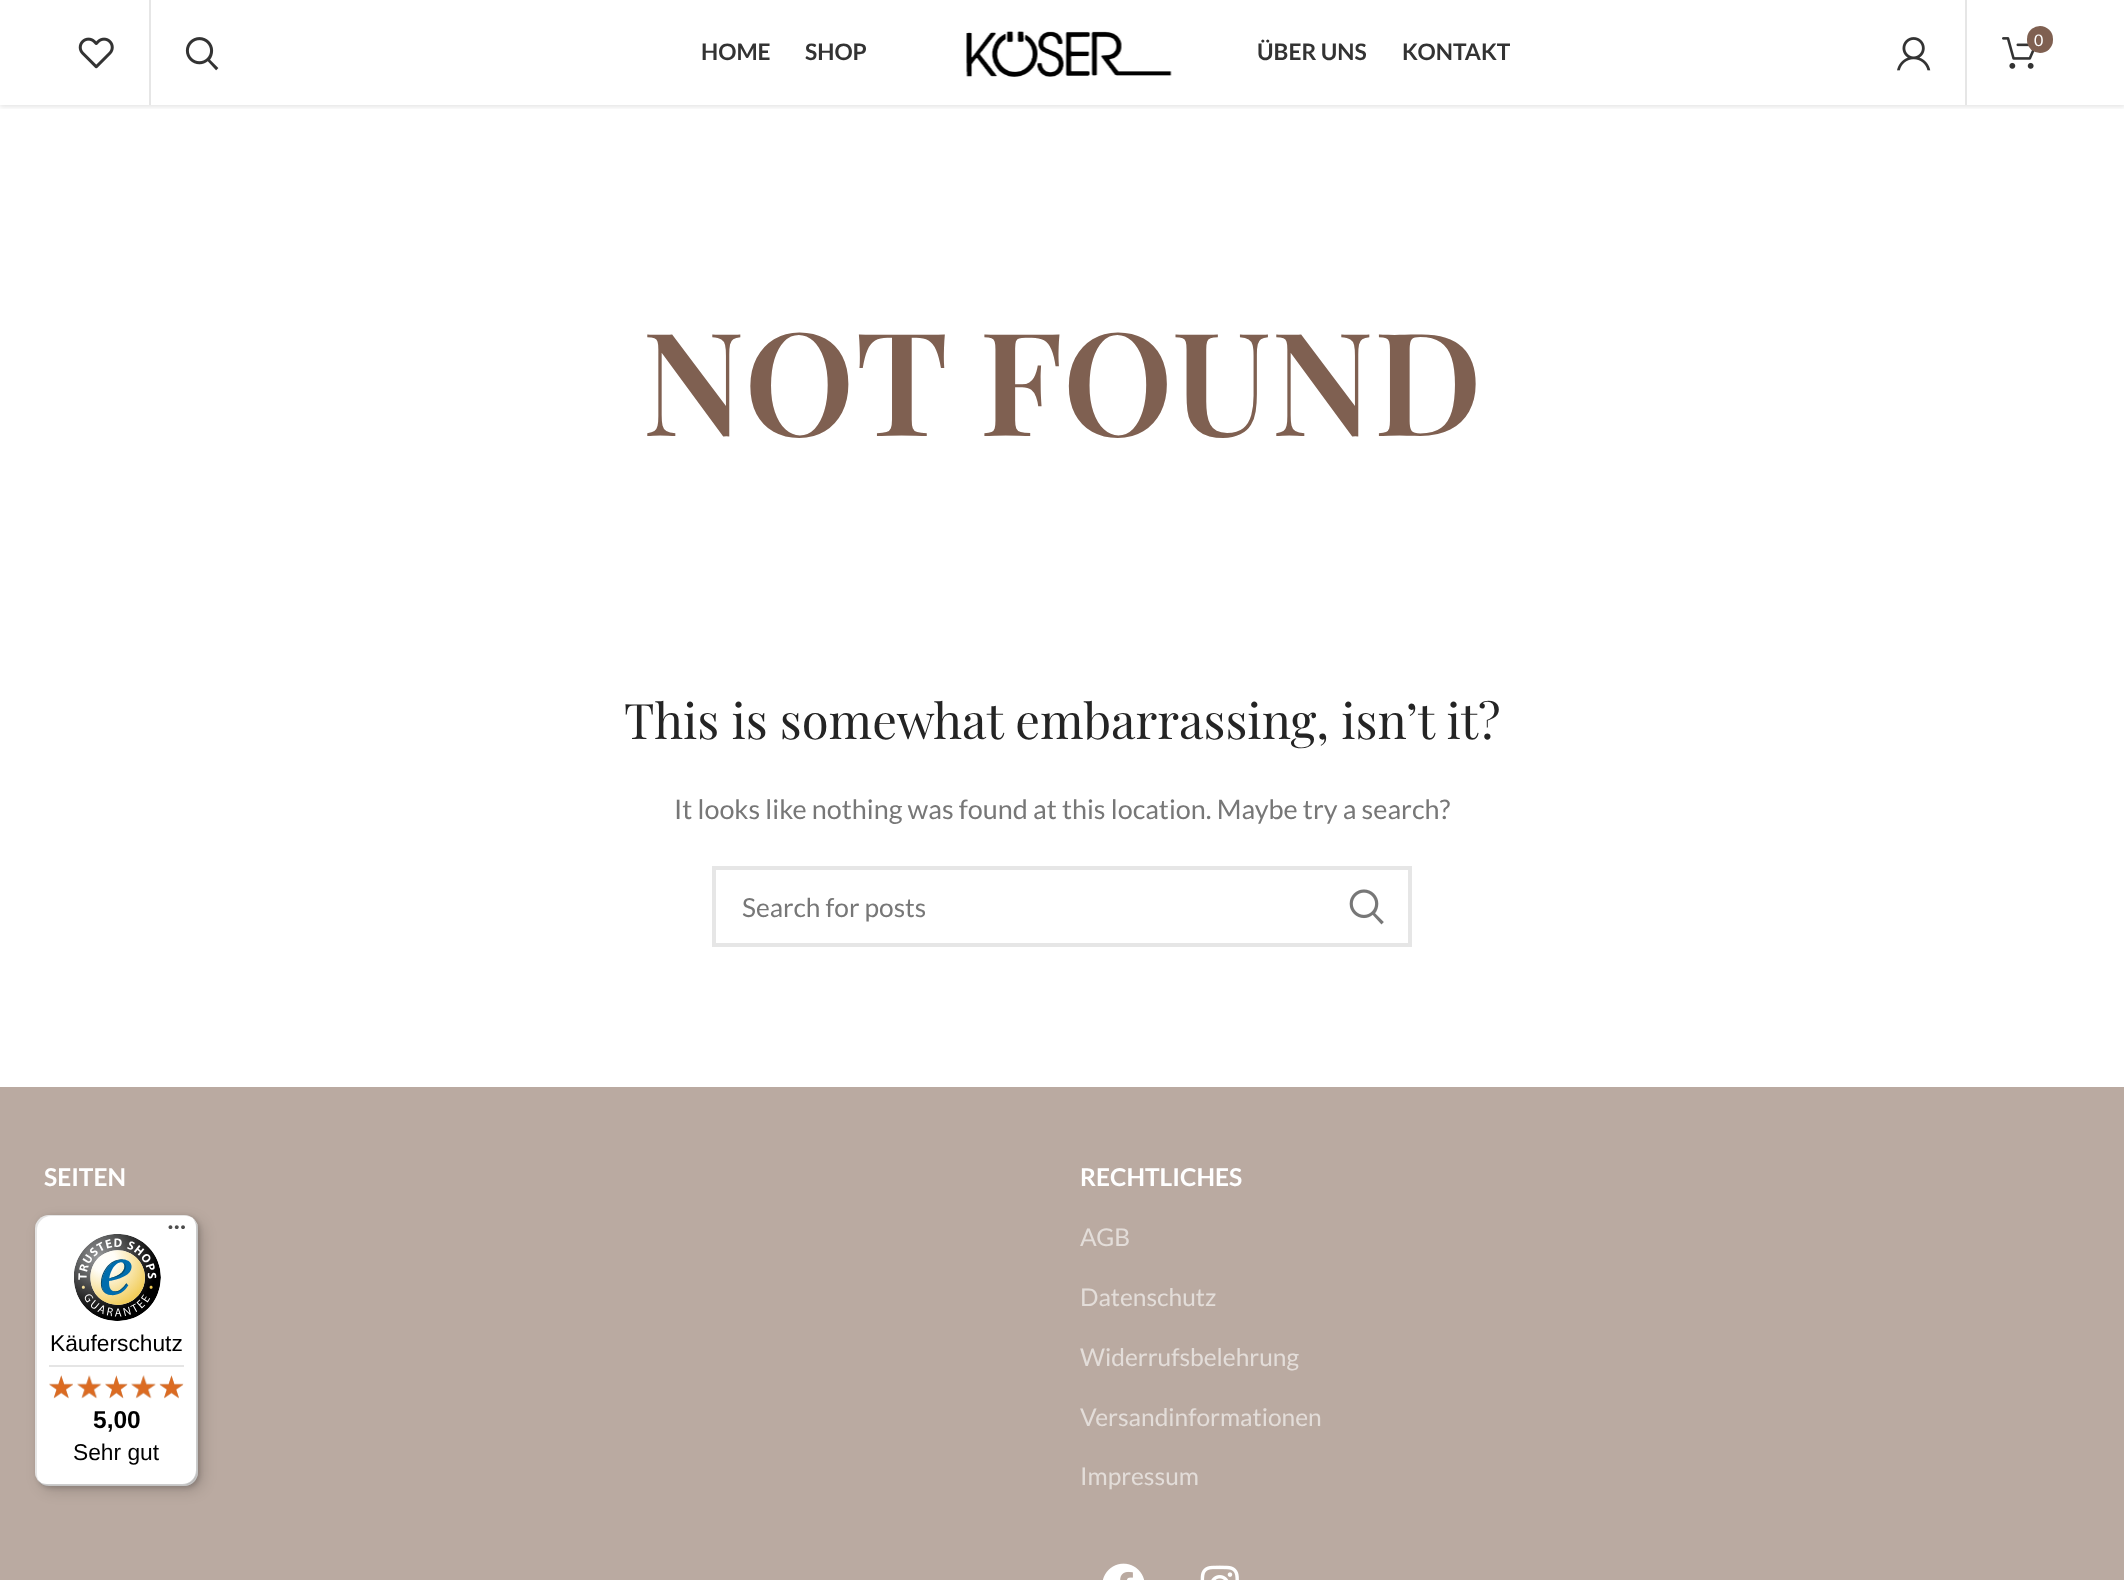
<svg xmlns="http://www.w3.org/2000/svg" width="2124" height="1580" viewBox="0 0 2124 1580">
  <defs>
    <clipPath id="clip1"><rect x="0" y="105" width="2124" height="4"/></clipPath>
  </defs>
  <rect width="100%" height="100%" fill="rgb(255,255,255)"/>
  <g clip-path="url(#clip1)">
    <rect x="0" y="2" width="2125" height="105" fill="rgba(0,0,0,0.1)" filter="blur(2.5px)"/>
  </g>
  <image x="78" y="37" width="36" height="32" href="pic1.png"/>
  <rect x="149" y="0" width="2" height="105" fill="rgb(230,230,230)"/>
  <image x="185" y="37" width="34" height="34" href="pic2.png"/>
  <g font-family="Lato" font-size="22.75" font-weight="bold" fill="rgb(51,51,51)">
    <text x="701" y="60">HOME</text>
    <text x="805" y="60">SHOP</text>
  </g>
  <image x="966" y="31" width="206" height="46" href="pic3.png"/>
  <g font-family="Lato" font-size="22.75" font-weight="bold" fill="rgb(51,51,51)">
    <text x="1257" y="60">ÜBER UNS</text>
    <text x="1402" y="60">KONTAKT</text>
  </g>
  <image x="1897" y="37" width="34" height="34" href="pic4.png"/>
  <rect x="1965" y="0" width="2" height="105" fill="rgb(230,230,230)"/>
  <image x="2002" y="37" width="33" height="32" href="pic5.png"/>
  <rect x="2027" y="26" width="26" height="27" rx="13" fill="rgb(127,96,81)"/>
  <text x="2034" y="46" font-family="Lato" font-size="16" fill="rgb(255,255,255)">0</text>
  <text x="642" y="436" font-family="Playfair Display" font-size="143.5" font-weight="600" fill="rgb(127,96,81)">NOT FOUND</text>
  <text x="624" y="739" font-family="Playfair Display" font-size="49" fill="rgb(36,36,36)">This is somewhat embarrassing, isn’t it?</text>
  <text x="674" y="819" font-family="Lato" font-size="26.95" fill="rgb(119,119,119)">It looks like nothing was found at this location. Maybe try a search?</text>
  <rect x="714" y="868" width="696" height="77" fill="none" stroke="rgb(230,230,230)" stroke-width="4"/>
  <text x="742" y="917" font-family="Lato" font-size="26.25" fill="rgb(119,119,119)">Search for posts</text>
  <image x="1349" y="889" width="35" height="36" href="pic6.png"/>
  <rect x="0" y="1087" width="2124" height="493" fill="rgb(186,170,161)"/>
  <g font-family="Lato" font-size="24.5" font-weight="bold" fill="rgb(255,255,255)">
    <text x="44" y="1186">SEITEN</text>
    <text x="1080" y="1186">RECHTLICHES</text>
  </g>
  <g font-family="Lato" font-size="24.5" fill="rgb(227,221,217)">
    <text x="1080" y="1246">AGB</text>
    <text x="1080" y="1306">Datenschutz</text>
    <text x="1080" y="1366">Widerrufsbelehrung</text>
    <text x="1080" y="1426">Versandinformationen</text>
    <text x="1080" y="1485">Impressum</text>
  </g>
  <image x="1103" y="1563" width="41" height="17" href="pic7.png"/>
  <image x="1200" y="1565" width="39" height="15" href="pic8.png"/>
  <rect x="40" y="1220" width="163" height="271" rx="14" fill="rgba(0,0,0,0.15)" filter="blur(7px)"/>
  <rect x="37" y="1216" width="163" height="272" rx="14" fill="rgba(0,0,0,0.15)" filter="blur(2px)"/>
  <rect x="35" y="1215" width="163" height="271" rx="14" fill="rgb(255,255,255)"/>
  <path d="M51 1216H186C188 1216 191 1217 193 1218C190 1216 187 1215 184 1215H49C41 1215 35 1221 35 1229V1472C35 1477 37 1481 41 1483C38 1481 37 1477 37 1474V1230C37 1223 43 1216 51 1216Z" fill="rgba(0,0,0,0.1)"/>
  <path d="M38 1480C40 1484 44 1486 49 1486H184C192 1486 198 1480 198 1472V1229C198 1225 196 1221 193 1219C195 1221 196 1224 196 1227V1470C196 1478 190 1484 182 1484H47C44 1484 40 1483 38 1480Z" fill="rgba(0,0,0,0.2)"/>
  <path d="M38 1480C40 1484 44 1486 49 1486H184C192 1486 198 1480 198 1472V1229C198 1226 197 1223 195 1220C196 1222 197 1225 197 1227V1471C197 1478 190 1485 183 1485H48C44 1485 40 1483 38 1480Z" fill="rgba(50,50,50,0.2)"/>
  <path d="M40 1482C42 1485 45 1486 49 1486H184C192 1486 198 1480 198 1472V1229C198 1225 197 1222 194 1220C196 1222 197 1225 197 1228V1471C197 1479 191 1485 183 1485H48C45 1485 42 1484 40 1482Z" fill="rgba(255,255,255,0.3)"/>
  <image x="168" y="1225" width="17" height="4" href="pic9.png"/>
  <image x="74" y="1234" width="87" height="87" href="pic10.png"/>
  <text x="50" y="1351" font-family="Liberation Sans" font-size="22.75" fill="rgb(0,0,0)">Käuferschutz</text>
  <rect x="49" y="1365" width="135" height="2" fill="rgb(229,229,229)"/>
  <image x="49" y="1376" width="24" height="22" href="pic11.png"/>
  <image x="77" y="1375" width="24" height="23" href="pic12.png"/>
  <image x="105" y="1376" width="23" height="22" href="pic13.png"/>
  <image x="131" y="1375" width="25" height="23" href="pic14.png"/>
  <image x="159" y="1376" width="24" height="22" href="pic15.png"/>
  <image x="49" y="1375" width="24" height="24" href="pic16.png"/>
  <image x="77" y="1375" width="25" height="24" href="pic17.png"/>
  <image x="105" y="1375" width="23" height="24" href="pic18.png"/>
  <image x="131" y="1375" width="25" height="24" href="pic19.png"/>
  <image x="159" y="1375" width="25" height="24" href="pic20.png"/>
  <text x="93" y="1428" font-family="Liberation Sans" font-size="24.5" font-weight="bold" fill="rgb(0,0,0)">5,00</text>
  <text x="73" y="1460" font-family="Liberation Sans" font-size="22.75" fill="rgb(0,0,0)">Sehr gut</text>
</svg>
